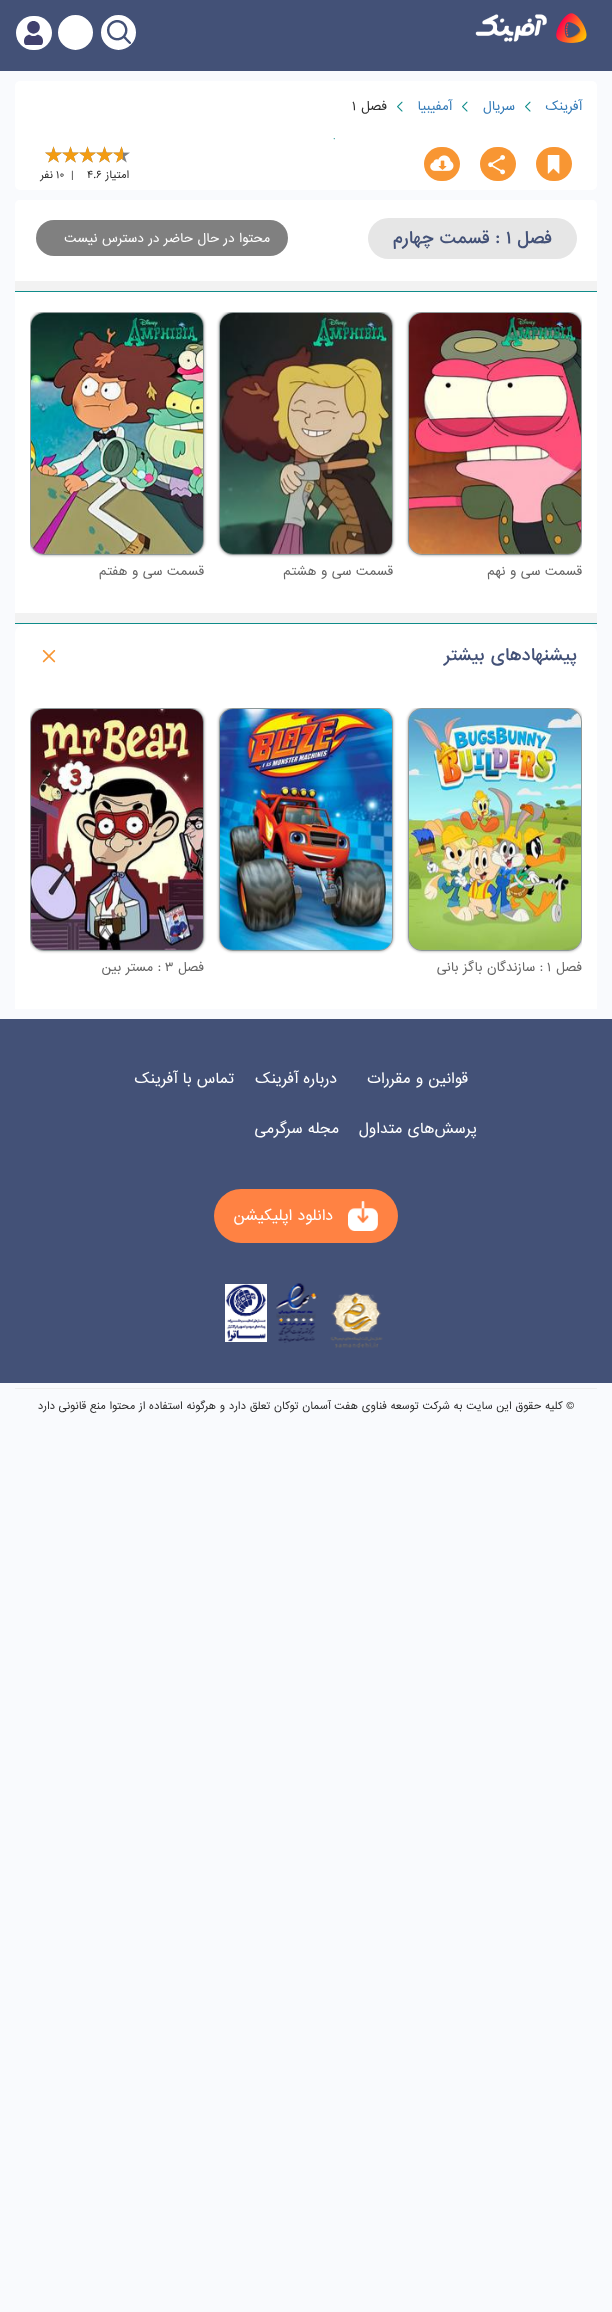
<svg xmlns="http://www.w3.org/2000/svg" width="612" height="2312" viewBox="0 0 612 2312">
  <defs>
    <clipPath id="clip1"><rect x="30" y="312" width="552" height="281"/></clipPath>
    <clipPath id="clip2"><rect x="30" y="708" width="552" height="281"/></clipPath>
  </defs>
  <rect width="100%" height="100%" fill="rgb(249,250,253)"/>
  <rect x="0" y="0" width="612" height="71" fill="rgb(67,81,119)"/>
  <image x="475" y="13" width="112" height="30" href="pic1.png"/>
  <circle cx="118.5" cy="32.5" r="16.5" fill="rgb(255,255,255)" stroke="rgb(255,255,255)" stroke-width="2"/>
  <image x="107" y="20" width="24" height="24" href="pic2.png"/>
  <circle cx="75.5" cy="32.5" r="16.5" fill="rgb(255,255,255)" stroke="rgb(255,255,255)" stroke-width="2"/>
  <rect x="16" y="16" width="36" height="34" rx="17" fill="rgb(255,255,255)"/>
  <image x="24" y="21" width="19" height="24" href="pic3.png"/>
  <rect x="15" y="81" width="582" height="109" rx="5" fill="rgb(255,255,255)"/>
  <text x="582" y="110" font-family="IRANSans" font-size="12" direction="rtl" fill="rgb(51,122,183)">آفرینک</text>
  <image x="525" y="101" width="6" height="11" href="pic4.png"/>
  <text x="515" y="110" font-family="IRANSans" font-size="12" direction="rtl" fill="rgb(51,122,183)">سریال</text>
  <image x="462" y="101" width="6" height="11" href="pic4.png"/>
  <text x="452" y="110" font-family="IRANSans" font-size="12" direction="rtl" fill="rgb(51,122,183)">آمفیبیا</text>
  <image x="397" y="101" width="6" height="11" href="pic4.png"/>
  <text x="387" y="110" font-family="IRANSans" font-size="12" direction="rtl" fill="rgb(46,46,46)">فصل</text>
  <text x="352" y="110" font-family="IRANSans" font-size="12" fill="rgb(46,46,46)">1</text>
  <text x="333" y="139" font-family="Liberation Serif" font-size="10" fill="rgb(15,140,138)">.</text>
  <rect x="536" y="147" width="36" height="34" rx="17" fill="rgb(248,150,51)"/>
  <image x="547" y="155" width="13" height="19" href="pic5.png"/>
  <rect x="480" y="147" width="36" height="34" rx="17" fill="rgb(248,150,51)"/>
  <image x="488" y="155" width="17" height="20" href="pic6.png"/>
  <rect x="424" y="147" width="36" height="34" rx="17" fill="rgb(248,150,51)"/>
  <image x="430" y="155" width="24" height="16" href="pic7.png"/>
  <image x="113" y="146" width="17" height="17" href="pic8.png"/>
  <image x="96" y="146" width="17" height="17" href="pic8.png"/>
  <image x="79" y="146" width="17" height="17" href="pic8.png"/>
  <image x="62" y="146" width="17" height="17" href="pic8.png"/>
  <image x="45" y="146" width="17" height="17" href="pic8.png"/>
  <image x="113" y="146" width="10" height="17" href="pic9.png"/>
  <image x="96" y="146" width="17" height="17" href="pic10.png"/>
  <image x="79" y="146" width="17" height="17" href="pic10.png"/>
  <image x="62" y="146" width="17" height="17" href="pic10.png"/>
  <image x="45" y="146" width="17" height="17" href="pic10.png"/>
  <text x="129" y="178" font-family="IRANSans" font-size="10" direction="rtl" fill="rgb(46,46,46)">امتیاز</text>
  <g font-family="IRANSans" font-size="10" fill="rgb(46,46,46)">
    <text x="87" y="178">4.6</text>
    <text x="71" y="178">|</text>
    <text x="56" y="178">10</text>
  </g>
  <text x="53" y="178" font-family="IRANSans" font-size="10" direction="rtl" fill="rgb(46,46,46)">نفر</text>
  <path d="M20 200H592C595 200 597 202 597 205V280H15V205C15 202 17 200 20 200Z" fill="rgb(255,255,255)"/>
  <rect x="368" y="218" width="209" height="41" rx="20.5" fill="rgb(230,230,230)"/>
  <text x="552" y="243" font-family="IRANSans" font-size="16" font-weight="500" direction="rtl" fill="rgb(67,81,119)">فصل</text>
  <text x="506" y="243" font-family="IRANSans" font-size="16" font-weight="500" fill="rgb(67,81,119)">1</text>
  <text x="500" y="243" font-family="IRANSans" font-size="16" font-weight="500" direction="rtl" fill="rgb(67,81,119)">: قسمت چهارم</text>
  <rect x="36" y="220" width="252" height="36" rx="18" fill="rgb(128,128,128)"/>
  <text x="270" y="242" font-family="IRANSans" font-size="12" direction="rtl" fill="rgb(255,255,255)">محتوا در حال حاضر در دسترس نیست</text>
  <rect x="15" y="280" width="582" height="1" fill="rgb(255,255,255)"/>
  <rect x="15" y="281" width="582" height="10" fill="rgb(242,242,242)"/>
  <rect x="15" y="291" width="582" height="1" fill="rgb(15,140,138)"/>
  <rect x="15" y="292" width="582" height="321" fill="rgb(255,255,255)"/>
  <g clip-path="url(#clip1)">
    <rect x="408" y="312" width="174" height="243" rx="14" fill="rgba(0,0,0,0.4)" filter="blur(1.5px)"/>
  </g>
  <rect x="408.5" y="312.5" width="173" height="242" rx="13.5" fill="none" stroke="rgb(141,152,152)"/>
  <image x="409" y="313" width="172" height="241" href="pic11.png"/>
  <text x="582" y="575" font-family="IRANSans" font-size="12" direction="rtl" fill="rgb(102,102,102)">قسمت سی و نهم</text>
  <g clip-path="url(#clip1)">
    <rect x="219" y="312" width="174" height="243" rx="14" fill="rgba(0,0,0,0.4)" filter="blur(1.5px)"/>
  </g>
  <rect x="219.5" y="312.5" width="173" height="242" rx="13.5" fill="none" stroke="rgb(141,152,152)"/>
  <image x="220" y="313" width="172" height="241" href="pic12.png"/>
  <text x="393" y="575" font-family="IRANSans" font-size="12" direction="rtl" fill="rgb(102,102,102)">قسمت سی و هشتم</text>
  <g clip-path="url(#clip1)">
    <rect x="30" y="312" width="174" height="243" rx="14" fill="rgba(0,0,0,0.4)" filter="blur(1.5px)"/>
  </g>
  <rect x="30.5" y="312.5" width="173" height="242" rx="13.5" fill="none" stroke="rgb(141,152,152)"/>
  <image x="31" y="313" width="172" height="241" href="pic13.png"/>
  <text x="204" y="575" font-family="IRANSans" font-size="12" direction="rtl" fill="rgb(102,102,102)">قسمت سی و هفتم</text>
  <rect x="15" y="613" width="582" height="10" fill="rgb(242,242,242)"/>
  <rect x="15" y="623" width="582" height="1" fill="rgb(15,140,138)"/>
  <path d="M25 624H587C592.5 624 597 628.5 597 634V688H15V634C15 628.5 19.5 624 25 624Z" fill="rgb(255,255,255)"/>
  <text x="577" y="660" font-family="IRANSans" font-size="16" font-weight="500" direction="rtl" fill="rgb(67,81,119)">پیشنهادهای بیشتر</text>
  <image x="42" y="649" width="14" height="14" href="pic14.png"/>
  <rect x="15" y="688" width="582" height="321" fill="rgb(255,255,255)"/>
  <g clip-path="url(#clip2)">
    <rect x="219" y="708" width="174" height="243" rx="14" fill="rgba(0,0,0,0.4)" filter="blur(1.5px)"/>
  </g>
  <rect x="219.5" y="708.5" width="173" height="242" rx="13.5" fill="none" stroke="rgb(141,152,152)"/>
  <image x="220" y="709" width="172" height="241" href="pic15.png"/>
  <g clip-path="url(#clip2)">
    <rect x="408" y="708" width="174" height="243" rx="14" fill="rgba(0,0,0,0.4)" filter="blur(1.5px)"/>
  </g>
  <rect x="408.5" y="708.5" width="173" height="242" rx="13.5" fill="none" stroke="rgb(141,152,152)"/>
  <image x="409" y="709" width="172" height="241" href="pic16.png"/>
  <text x="582" y="971" font-family="IRANSans" font-size="12" direction="rtl" fill="rgb(102,102,102)">فصل</text>
  <text x="547" y="971" font-family="IRANSans" font-size="12" fill="rgb(102,102,102)">1</text>
  <text x="543" y="971" font-family="IRANSans" font-size="12" direction="rtl" fill="rgb(102,102,102)">: سازندگان باگز بانی</text>
  <g clip-path="url(#clip2)">
    <rect x="30" y="708" width="174" height="243" rx="14" fill="rgba(0,0,0,0.4)" filter="blur(1.5px)"/>
  </g>
  <rect x="30.5" y="708.5" width="173" height="242" rx="13.5" fill="none" stroke="rgb(141,152,152)"/>
  <image x="31" y="709" width="172" height="241" href="pic17.png"/>
  <text x="204" y="971" font-family="IRANSans" font-size="12" direction="rtl" fill="rgb(102,102,102)">فصل</text>
  <text x="165" y="971" font-family="IRANSans" font-size="12" fill="rgb(102,102,102)">3</text>
  <text x="161" y="971" font-family="IRANSans" font-size="12" direction="rtl" fill="rgb(102,102,102)">: مستر بین</text>
  <rect x="0" y="1019" width="612" height="364" fill="rgb(67,81,119)"/>
  <g font-family="IRANSans" font-size="14" direction="rtl" fill="rgb(255,255,255)">
    <text x="468" y="1083">قوانین و مقررات</text>
    <text x="337" y="1083">درباره آفرینک</text>
    <text x="234" y="1083">تماس با آفرینک</text>
    <text x="477" y="1133">پرسش‌های متداول</text>
    <text x="339" y="1133">مجله سرگرمی</text>
  </g>
  <rect x="214" y="1189" width="184" height="54" rx="27" fill="rgb(255,130,67)"/>
  <image x="348" y="1201" width="30" height="30" href="pic18.png"/>
  <text x="333" y="1220" font-family="IRANSans" font-size="14" direction="rtl" fill="rgb(255,255,255)">دانلود اپلیکیشن</text>
  <image x="330" y="1292" width="53" height="56" href="pic19.png"/>
  <image x="276" y="1283" width="42" height="60" href="pic20.png"/>
  <image x="225" y="1284" width="42" height="58" href="pic21.png"/>
  <rect x="15" y="1388" width="582" height="1" fill="rgb(238,238,238)"/>
  <g font-family="IRANSans" font-size="10" direction="rtl" fill="rgb(46,46,46)">
    <text x="574" y="1409">© کلیه حقوق این سایت به شرکت توسعه فناوی هفت آسمان توکان تعلق دارد و هرگونه استفاده از محتوا منع قانونی</text>
    <text x="55" y="1409">دارد</text>
  </g>
</svg>
